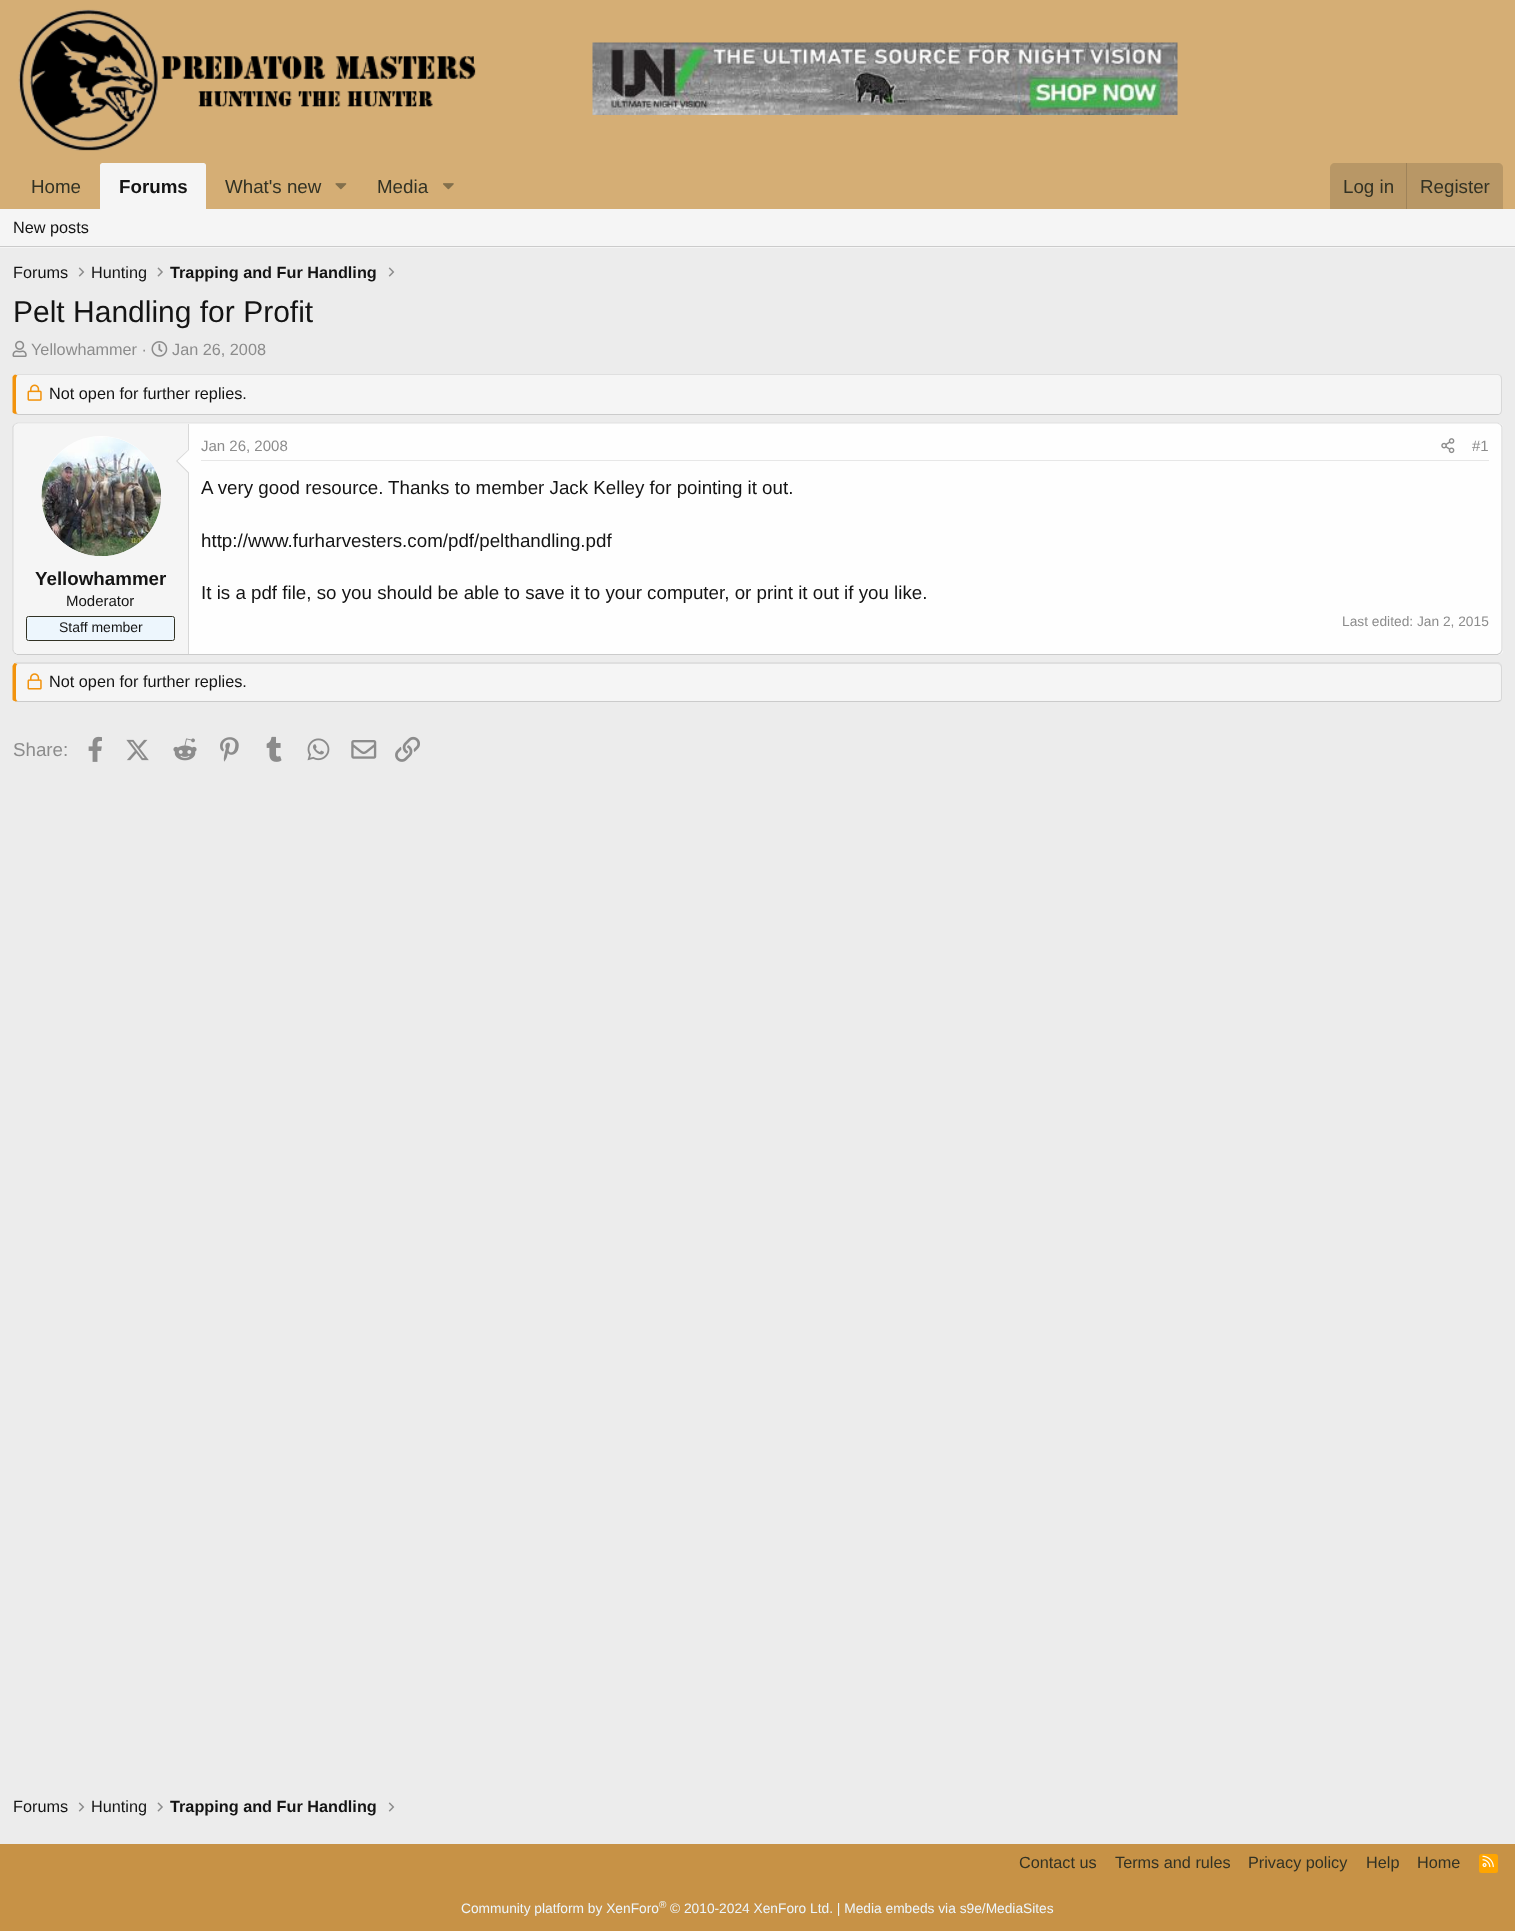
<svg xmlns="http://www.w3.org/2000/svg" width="1515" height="1931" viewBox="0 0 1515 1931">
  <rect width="100%" height="100%" fill="rgb(236,236,236)"/>
  <rect x="0" y="0" width="1515" height="209" fill="rgb(213,174,117)"/>
  <image x="18" y="9" width="458" height="142" href="pic1.png"/>
  <image x="592" y="42" width="586" height="73" href="pic2.png"/>
  <text x="31" y="193" font-family="Liberation Sans" font-size="18.75" fill="rgb(50,50,36)">Home</text>
  <path d="M102.5 163H203.5C205 163 206 164 206 165.5V209H100V165.5C100 164 101 163 102.5 163Z" fill="rgb(245,245,245)"/>
  <text x="119" y="193" font-family="Liberation Sans" font-size="18.75" font-weight="bold" fill="rgb(20,20,20)">Forums</text>
  <text x="225" y="193" font-family="Liberation Sans" font-size="18.75" fill="rgb(50,50,36)">What's new</text>
  <image x="335" y="183" width="12" height="7" href="pic3.png"/>
  <text x="377" y="193" font-family="Liberation Sans" font-size="18.75" fill="rgb(50,50,36)">Media</text>
  <image x="443" y="183" width="11" height="7" href="pic4.png"/>
  <path d="M1335 163H1498C1501 163 1503 165 1503 168V209H1330V168C1330 165 1332 163 1335 163Z" fill="rgb(184,151,102)"/>
  <text x="1343" y="193" font-family="Liberation Sans" font-size="18.75" fill="rgb(50,50,36)">Log in</text>
  <rect x="1406" y="163" width="1" height="46" fill="rgb(159,131,90)"/>
  <text x="1420" y="193" font-family="Liberation Sans" font-size="18.75" fill="rgb(50,50,36)">Register</text>
  <rect x="0" y="209" width="1515" height="39" fill="rgb(245,245,245)"/>
  <rect x="0" y="246" width="1515" height="1" fill="rgb(203,203,203)"/>
  <g font-family="Liberation Sans" font-size="16.25" fill="rgb(20,20,20)">
    <text x="13" y="233">New posts</text>
    <text x="13" y="278">Forums</text>
  </g>
  <image x="78" y="267" width="7" height="10" href="pic5.png"/>
  <text x="91" y="278" font-family="Liberation Sans" font-size="16.25" fill="rgb(20,20,20)">Hunting</text>
  <image x="157" y="267" width="6" height="10" href="pic6.png"/>
  <text x="170" y="278" font-family="Liberation Sans" font-size="16.25" font-weight="bold" fill="rgb(20,20,20)">Trapping and Fur Handling</text>
  <image x="388" y="267" width="7" height="10" href="pic5.png"/>
  <text x="13" y="322" font-family="Liberation Sans" font-size="30" fill="rgb(20,20,20)">Pelt Handling for Profit</text>
  <image x="12" y="340" width="15" height="17" href="pic7.png"/>
  <text x="31" y="355" font-family="Liberation Sans" font-size="16.25" fill="rgb(140,140,140)">Yellowhammer ·</text>
  <image x="151" y="341" width="17" height="16" href="pic8.png"/>
  <text x="172" y="355" font-family="Liberation Sans" font-size="16.25" fill="rgb(140,140,140)">Jan 26, 2008</text>
  <path d="M18 375H1498C1500 375 1501 377 1501 379V410C1501 412 1500 414 1498 414H18C17 414 16 412 16 410V379C16 377 17 375 18 375Z" fill="rgb(245,245,245)"/>
  <path d="M18 374L15 375H17H1498L1500 376L1501 375C1500 375 1499 374 1498 374Z" fill="rgb(223,223,223)"/>
  <path d="M1501 375.5C1501.5 376.5 1502 377.5 1502 379V410C1502 411.5 1501.5 412.5 1501 413.5L1500 413C1501 412 1501 411 1501 410V379C1501 378 1500.5 377 1500 376Z" fill="rgb(216,216,216)"/>
  <path d="M18 415H1498C1499 415 1500 414 1501 413H1500C1500 414 1499 414 1498 414H18L17 413L15 414Z" fill="rgb(203,203,203)"/>
  <path d="M12.5 377C13 376 14 375 15 374.5L17.5 375.5C16.5 376 16 377.5 16 379V410C16 411.5 16.5 412.5 17 413.5L15 414C14 413.5 13 413 12.5 412Z" fill="rgb(242,147,13)"/>
  <image x="27" y="384" width="15" height="17" href="pic9.png"/>
  <text x="49" y="399" font-family="Liberation Sans" font-size="16.25" fill="rgb(20,20,20)">Not open for further replies.</text>
  <rect x="13" y="423" width="1490" height="232" rx="5" fill="rgb(254,254,254)"/>
  <path d="M14.5 424.5L17.5 423H1497.5L1500.5 424.5" fill="none" stroke="rgb(223,223,223)" stroke-width="1.2"/>
  <path d="M1500.5 424.5L1502 427V613V650L1500.5 653" fill="none" stroke="rgb(216,216,216)" stroke-width="1.2"/>
  <path d="M1500.5 653L1497.5 654.5H17.5L14.5 653" fill="none" stroke="rgb(203,203,203)" stroke-width="1.2"/>
  <path d="M14.5 653L13 650V427L14.5 424.5" fill="none" stroke="rgb(216,216,216)" stroke-width="1.2"/>
  <path d="M18 424H189V654H18C16 654 14 652 14 650V428C14 426 16 424 18 424Z" fill="rgb(245,245,245)"/>
  <rect x="188" y="424" width="1" height="230" fill="rgb(216,216,216)"/>
  <circle cx="101" cy="496" r="60" fill="rgb(254,254,254)"/>
  <image x="41" y="437" width="120" height="119" href="pic10.png"/>
  <path d="M189 449V474L176 461Z" fill="rgb(216,216,216)"/>
  <path d="M189 450V472.5L177.5 461Z" fill="rgb(254,254,254)"/>
  <text x="35" y="585" font-family="Liberation Sans" font-size="18.75" font-weight="bold" fill="rgb(20,20,20)">Yellowhammer</text>
  <text x="66" y="606" font-family="Liberation Sans" font-size="15" fill="rgb(20,20,20)">Moderator</text>
  <rect x="26.5" y="616.5" width="148" height="24" rx="2" fill="rgb(237,246,253)" stroke="rgb(50,50,36)"/>
  <text x="59" y="632" font-family="Liberation Sans" font-size="14" fill="rgb(20,20,20)">Staff member</text>
  <rect x="201" y="460" width="1288" height="1" fill="rgb(231,231,231)"/>
  <text x="201" y="451" font-family="Liberation Sans" font-size="15" fill="rgb(140,140,140)">Jan 26, 2008</text>
  <image x="1441" y="438" width="14" height="16" href="pic11.png"/>
  <text x="1472" y="451" font-family="Liberation Sans" font-size="15" fill="rgb(140,140,140)">#1</text>
  <g font-family="Liberation Sans" font-size="18.75" fill="rgb(20,20,20)">
    <text x="201" y="494">A very good resource.</text>
    <text x="388" y="494">Thanks to member Jack Kelley for pointing it out.</text>
    <text x="201" y="547">http://www.furharvesters.com/pdf/pelthandling.pdf</text>
    <text x="201" y="599">It is a pdf file, so you should be able to save it to your computer, or print it out if you like.</text>
  </g>
  <text x="1342" y="626" font-family="Liberation Sans" font-size="13.75" fill="rgb(140,140,140)">Last edited: Jan 2, 2015</text>
  <path d="M18 664H1498C1500 664 1501 665 1501 668V698C1501 700 1500 701 1498 701H18C17 701 16 700 16 698V668C16 665 17 664 18 664Z" fill="rgb(245,245,245)"/>
  <path d="M18 664L15 663L16 662H1499L1501 664L1500 665L1498 664Z" fill="rgb(223,223,223)"/>
  <path d="M1501 664C1501.5 665 1502 666.5 1502 668V698C1502 699 1501.5 700 1501 701L1500 700C1501 700 1501 699 1501 698V668C1501 666.5 1500.5 665.5 1500 665Z" fill="rgb(216,216,216)"/>
  <path d="M1501 701L1498 702H18H15L17 701H1498L1500 700Z" fill="rgb(203,203,203)"/>
  <path d="M12.5 666C13 665 13.5 664 14.5 663L17.5 664C16.5 664.5 16 665.5 16 668V698C16 699.5 16.5 700.5 17.5 701L15.5 701.5C14 701 13 700.5 12.5 699.5Z" fill="rgb(242,147,13)"/>
  <image x="27" y="673" width="15" height="17" href="pic12.png"/>
  <text x="49" y="687" font-family="Liberation Sans" font-size="16.25" fill="rgb(20,20,20)">Not open for further replies.</text>
  <text x="13" y="756" font-family="Liberation Sans" font-size="18.75" fill="rgb(140,140,140)">Share:</text>
  <image x="88" y="736" width="14" height="26" href="pic13.png"/>
  <image x="126" y="739" width="23" height="22" href="pic14.png"/>
  <image x="173" y="738" width="24" height="23" href="pic15.png"/>
  <image x="220" y="737" width="19" height="25" href="pic16.png"/>
  <image x="266" y="736" width="16" height="26" href="pic17.png"/>
  <image x="307" y="738" width="23" height="23" href="pic18.png"/>
  <image x="351" y="740" width="26" height="19" href="pic19.png"/>
  <image x="395" y="736" width="25" height="26" href="pic20.png"/>
  <text x="13" y="1812" font-family="Liberation Sans" font-size="16.25" fill="rgb(20,20,20)">Forums</text>
  <image x="78" y="1802" width="7" height="10" href="pic5.png"/>
  <text x="91" y="1812" font-family="Liberation Sans" font-size="16.25" fill="rgb(20,20,20)">Hunting</text>
  <image x="157" y="1802" width="6" height="10" href="pic6.png"/>
  <text x="170" y="1812" font-family="Liberation Sans" font-size="16.25" font-weight="bold" fill="rgb(20,20,20)">Trapping and Fur Handling</text>
  <image x="388" y="1802" width="7" height="10" href="pic5.png"/>
  <rect x="0" y="1844" width="1515" height="87" fill="rgb(199,146,70)"/>
  <g font-family="Liberation Sans" font-size="16.25" fill="rgb(50,50,36)">
    <text x="1019" y="1868">Contact us</text>
    <text x="1115" y="1868">Terms and rules</text>
    <text x="1248" y="1868">Privacy policy</text>
    <text x="1366" y="1868">Help</text>
    <text x="1417" y="1868">Home</text>
  </g>
  <rect x="1479" y="1854" width="19" height="19" rx="2.5" fill="rgb(255,165,0)"/>
  <image x="1482" y="1855" width="12" height="13" href="pic21.png"/>
  <text x="461" y="1913" font-family="Liberation Sans" font-size="13.75" fill="rgb(237,246,253)">Community platform by XenForo</text>
  <text x="659" y="1908" font-family="Liberation Sans" font-size="10" fill="rgb(237,246,253)">®</text>
  <text x="670" y="1913" font-family="Liberation Sans" font-size="13.75" fill="rgb(237,246,253)">© 2010-2024 XenForo Ltd. | Media embeds via s9e/MediaSites</text>
</svg>
